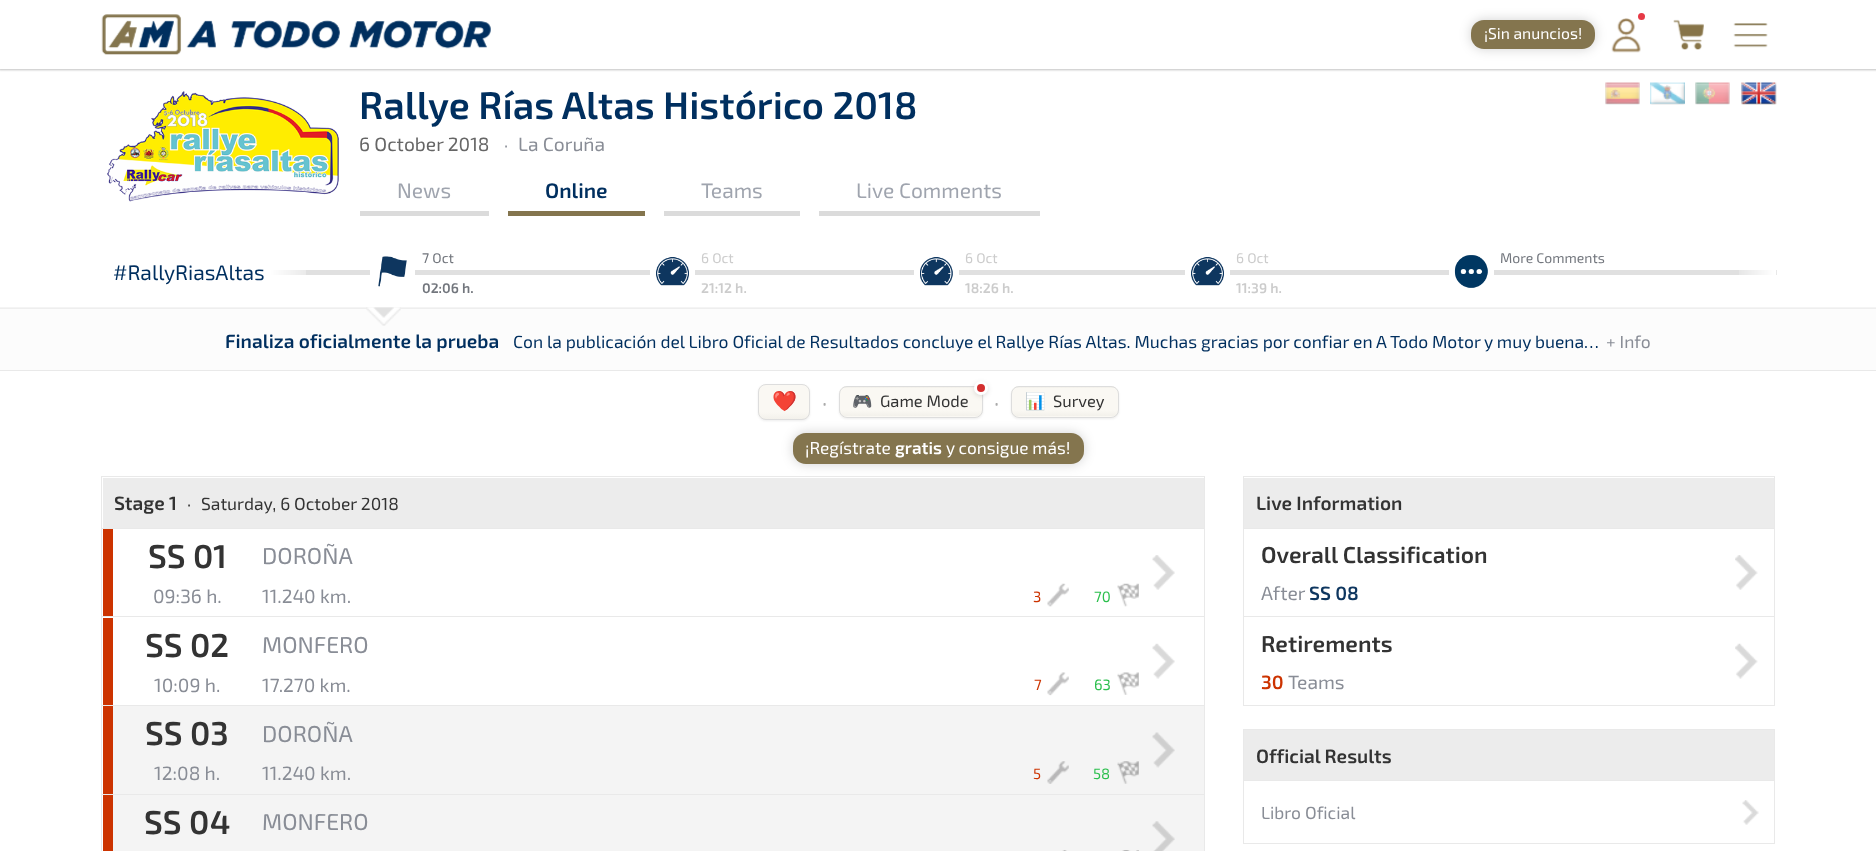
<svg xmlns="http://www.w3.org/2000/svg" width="1876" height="851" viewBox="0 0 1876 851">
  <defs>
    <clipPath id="clip1"><rect x="758" y="384" width="52" height="36" rx="8"/></clipPath>
    <linearGradient id="g1" gradientUnits="userSpaceOnUse" x1="784" y1="385" x2="784" y2="419"><stop offset="0.8" stop-color="rgb(250,248,243)"/><stop offset="1" stop-color="rgb(243,241,235)"/></linearGradient>
    <clipPath id="clip2"><rect x="839" y="386" width="144" height="32" rx="8"/></clipPath>
    <linearGradient id="g2" gradientUnits="userSpaceOnUse" x1="911" y1="359" x2="911" y2="388"><stop offset="0.8" stop-color="rgb(250,248,243)"/><stop offset="1" stop-color="rgb(243,241,235)"/></linearGradient>
    <linearGradient id="g3" gradientUnits="userSpaceOnUse" x1="911" y1="388" x2="911" y2="416"><stop offset="0.8" stop-color="rgb(250,248,243)"/><stop offset="1" stop-color="rgb(243,241,235)"/></linearGradient>
    <linearGradient id="g4" gradientUnits="userSpaceOnUse" x1="911" y1="416" x2="911" y2="445"><stop offset="0.8" stop-color="rgb(250,248,243)"/><stop offset="1" stop-color="rgb(243,241,235)"/></linearGradient>
    <clipPath id="clip3"><rect x="1011" y="386" width="108" height="32" rx="8"/></clipPath>
    <linearGradient id="g5" gradientUnits="userSpaceOnUse" x1="1065" y1="359" x2="1065" y2="388"><stop offset="0.8" stop-color="rgb(250,248,243)"/><stop offset="1" stop-color="rgb(243,241,235)"/></linearGradient>
    <linearGradient id="g6" gradientUnits="userSpaceOnUse" x1="1065" y1="388" x2="1065" y2="416"><stop offset="0.8" stop-color="rgb(250,248,243)"/><stop offset="1" stop-color="rgb(243,241,235)"/></linearGradient>
    <linearGradient id="g7" gradientUnits="userSpaceOnUse" x1="1065" y1="416" x2="1065" y2="445"><stop offset="0.8" stop-color="rgb(250,248,243)"/><stop offset="1" stop-color="rgb(243,241,235)"/></linearGradient>
  </defs>
  <rect width="100%" height="100%" fill="rgb(255,255,255)"/>
  <rect x="-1" y="-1" width="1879" height="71" fill="rgb(192,192,192)" filter="blur(1px)"/>
  <rect x="0" y="0" width="1876" height="69" fill="rgb(255,255,255)"/>
  <image x="101" y="14" width="390" height="41" href="pic1.png"/>
  <rect x="1471" y="20" width="124" height="29" rx="13" fill="rgba(0,0,0,0.18)" filter="blur(6px)"/>
  <rect x="1471" y="20" width="124" height="29" rx="13" fill="rgb(132,117,78)"/>
  <text x="1484" y="39" font-family="'Exo 2'" font-size="15.75" fill="rgb(255,255,255)">¡Sin anuncios!</text>
  <image x="1611" y="18" width="30" height="35" href="pic2.png"/>
  <circle cx="1641.5" cy="16.5" r="3.5" fill="rgb(230,57,70)"/>
  <image x="1673" y="19" width="31" height="31" href="pic3.png"/>
  <image x="1733" y="23" width="35" height="25" href="pic4.png"/>
  <image x="107" y="91" width="232" height="111" href="pic5.png"/>
  <text x="359" y="119" font-family="'Exo 2'" font-size="38.5" font-weight="600" fill="rgb(0,47,95)">Rallye Rías Altas Histórico 2018</text>
  <text x="359" y="151" font-family="'Exo 2'" font-size="19.25" fill="rgb(102,102,102)">6 October 2018</text>
  <text x="504" y="151" font-family="'Exo 2'" font-size="17.5" fill="rgb(137,141,150)">·</text>
  <text x="518" y="151" font-family="'Exo 2'" font-size="19.25" fill="rgb(137,141,150)">La Coruña</text>
  <rect x="360" y="211" width="129" height="5" fill="rgb(219,219,219)"/>
  <text x="397" y="198" font-family="'Exo 2'" font-size="21" fill="rgb(159,164,174)">News</text>
  <rect x="508" y="211" width="137" height="5" fill="rgb(132,117,78)"/>
  <text x="545" y="198" font-family="'Exo 2'" font-size="21" font-weight="600" fill="rgb(0,47,95)">Online</text>
  <rect x="664" y="211" width="136" height="5" fill="rgb(219,219,219)"/>
  <text x="701" y="198" font-family="'Exo 2'" font-size="21" fill="rgb(159,164,174)">Teams</text>
  <rect x="819" y="211" width="221" height="5" fill="rgb(219,219,219)"/>
  <text x="856" y="198" font-family="'Exo 2'" font-size="21" fill="rgb(159,164,174)">Live Comments</text>
  <image x="1605" y="82" width="35" height="23" href="pic6.png"/>
  <image x="1650" y="82" width="35" height="23" href="pic7.png"/>
  <image x="1695" y="82" width="35" height="23" href="pic8.png"/>
  <image x="1741" y="82" width="36" height="23" href="pic9.png"/>
  <rect x="270" y="270" width="1507" height="5" fill="rgb(224,224,224)"/>
  <rect x="370" y="270" width="45" height="5" fill="rgb(255,255,255)"/>
  <image x="378" y="256" width="29" height="31" href="pic10.png"/>
  <text x="422" y="263" font-family="'Exo 2'" font-size="14" fill="rgb(114,118,125)">7 Oct</text>
  <text x="422" y="293" font-family="'Exo 2'" font-size="14" font-weight="600" fill="rgb(114,118,125)">02:06 h.</text>
  <rect x="650" y="270" width="45" height="5" fill="rgb(255,255,255)"/>
  <image x="656" y="257" width="33" height="29" href="pic11.png"/>
  <text x="701" y="263" font-family="'Exo 2'" font-size="14" fill="rgb(204,204,204)">6 Oct</text>
  <text x="701" y="293" font-family="'Exo 2'" font-size="14" font-weight="600" fill="rgb(204,204,204)">21:12 h.</text>
  <rect x="914" y="270" width="45" height="5" fill="rgb(255,255,255)"/>
  <image x="920" y="257" width="33" height="29" href="pic12.png"/>
  <text x="965" y="263" font-family="'Exo 2'" font-size="14" fill="rgb(204,204,204)">6 Oct</text>
  <text x="965" y="293" font-family="'Exo 2'" font-size="14" font-weight="600" fill="rgb(204,204,204)">18:26 h.</text>
  <rect x="1185" y="270" width="45" height="5" fill="rgb(255,255,255)"/>
  <image x="1191" y="257" width="33" height="29" href="pic11.png"/>
  <text x="1236" y="263" font-family="'Exo 2'" font-size="14" fill="rgb(204,204,204)">6 Oct</text>
  <text x="1236" y="293" font-family="'Exo 2'" font-size="14" font-weight="600" fill="rgb(204,204,204)">11:39 h.</text>
  <rect x="1449" y="270" width="45" height="5" fill="rgb(255,255,255)"/>
  <image x="1454" y="255" width="34" height="33" href="pic13.png"/>
  <text x="1500" y="263" font-family="'Exo 2'" font-size="14" fill="rgb(114,118,125)">More Comments</text>
  <text x="113" y="280" font-family="'Exo 2'" font-size="21" fill="rgb(0,47,95)">#RallyRiasAltas</text>
  <image x="269" y="270" width="37" height="5" href="pic14.png"/>
  <image x="1739" y="270" width="38" height="5" href="pic15.png"/>
  <rect x="0" y="308" width="1876" height="62" fill="rgb(252,252,252)"/>
  <image x="0" y="307" width="1876" height="2" href="pic16.png"/>
  <rect x="0" y="370" width="1876" height="1" fill="rgb(233,233,233)"/>
  <image x="366" y="307" width="35" height="19" href="pic17.png"/>
  <text x="225" y="348" font-family="'Exo 2'" font-size="19.25" font-weight="600" fill="rgb(0,47,95)">Finaliza oficialmente la prueba</text>
  <text x="513" y="348" font-family="'Exo 2'" font-size="17.5" fill="rgb(0,47,95)">Con la publicación del Libro Oficial de Resultados concluye el Rallye Rías Altas. Muchas gracias por confiar en A Todo Motor y muy buena…</text>
  <text x="1606" y="348" font-family="'Exo 2'" font-size="17.5" fill="rgb(137,141,150)">+ Info</text>
  <rect x="758" y="385" width="52" height="36" rx="8" fill="rgba(0,0,0,0.07)" filter="blur(1px)"/>
  <g clip-path="url(#clip1)">
    <rect x="758" y="385" width="52" height="34" fill="url(#g1)"/>
  </g>
  <rect x="758.5" y="384.5" width="51" height="35" rx="7.5" fill="none" stroke="rgb(221,221,221)"/>
  <text x="772" y="408" font-family="Noto Color Emoji" font-size="20" fill="rgb(51,51,51)">❤️</text>
  <text x="822" y="410" font-family="'Exo 2'" font-size="22" fill="rgb(170,170,170)">·</text>
  <rect x="839" y="388" width="144" height="31" rx="8" fill="rgba(0,0,0,0.07)" filter="blur(1px)"/>
  <g clip-path="url(#clip2)">
    <rect x="839" y="386" width="144" height="2" fill="url(#g2)"/>
    <rect x="839" y="388" width="144" height="28" fill="url(#g3)"/>
    <rect x="839" y="416" width="144" height="2" fill="url(#g4)"/>
  </g>
  <rect x="839.5" y="386.5" width="143" height="31" rx="7.5" fill="none" stroke="rgb(221,221,221)"/>
  <text x="852" y="407" font-family="Noto Color Emoji" font-size="16.5" fill="rgb(51,51,51)">🎮</text>
  <text x="880" y="407" font-family="'Exo 2'" font-size="16.5" fill="rgb(51,51,51)">Game Mode</text>
  <rect x="974" y="383" width="14" height="13" rx="6.5" fill="rgba(0,0,0,0.13)" filter="blur(2.5px)"/>
  <circle cx="981" cy="388" r="5.5" fill="rgb(211,47,47)" stroke="rgb(255,255,255)" stroke-width="3"/>
  <text x="994" y="410" font-family="'Exo 2'" font-size="22" fill="rgb(170,170,170)">·</text>
  <rect x="1011" y="388" width="108" height="31" rx="8" fill="rgba(0,0,0,0.07)" filter="blur(1px)"/>
  <g clip-path="url(#clip3)">
    <rect x="1011" y="386" width="108" height="2" fill="url(#g5)"/>
    <rect x="1011" y="388" width="108" height="28" fill="url(#g6)"/>
    <rect x="1011" y="416" width="108" height="2" fill="url(#g7)"/>
  </g>
  <rect x="1011.5" y="386.5" width="107" height="31" rx="7.5" fill="none" stroke="rgb(221,221,221)"/>
  <text x="1025" y="407" font-family="Noto Color Emoji" font-size="16.5" fill="rgb(51,51,51)">📊</text>
  <text x="1053" y="407" font-family="'Exo 2'" font-size="16.5" fill="rgb(51,51,51)">Survey</text>
  <rect x="793" y="433" width="291" height="31" rx="13" fill="rgba(0,0,0,0.18)" filter="blur(6px)"/>
  <rect x="793" y="433" width="291" height="31" rx="13" fill="rgb(132,117,78)"/>
  <text x="805" y="454" font-family="'Exo 2'" font-size="17.25" fill="rgb(255,255,255)">¡Regístrate</text>
  <text x="895" y="454" font-family="'Exo 2'" font-size="17.25" font-weight="600" fill="rgb(255,255,255)">gratis</text>
  <text x="946" y="454" font-family="'Exo 2'" font-size="17.25" fill="rgb(255,255,255)">y consigue más!</text>
  <rect x="103" y="478" width="1101" height="50" fill="rgb(236,236,236)"/>
  <rect x="101" y="476" width="1104" height="1" fill="rgb(233,233,233)"/>
  <rect x="1204" y="476" width="1" height="52" fill="rgb(233,233,233)"/>
  <rect x="101" y="476" width="1" height="52" fill="rgb(233,233,233)"/>
  <text x="114" y="510" font-family="'Exo 2'" font-size="19.25" font-weight="600" fill="rgb(51,51,51)">Stage 1</text>
  <g font-family="'Exo 2'" font-size="17.5" fill="rgb(51,51,51)">
    <text x="187" y="510">·</text>
    <text x="201" y="510">Saturday, 6 October 2018</text>
  </g>
  <rect x="101" y="528" width="1104" height="1" fill="rgb(233,233,233)"/>
  <rect x="1204" y="528" width="1" height="88" fill="rgb(233,233,233)"/>
  <rect x="101" y="528" width="1" height="88" fill="rgb(233,233,233)"/>
  <image x="1152" y="555" width="23" height="35" href="pic18.png"/>
  <rect x="103" y="529" width="10" height="87" fill="rgb(204,51,0)"/>
  <text x="148" y="568" font-family="'Exo 2'" font-size="33" font-weight="600" fill="rgb(51,51,51)">SS 01</text>
  <text x="153" y="603" font-family="'Exo 2'" font-size="19.25" fill="rgb(137,141,150)">09:36 h.</text>
  <text x="262" y="564" font-family="'Exo 2'" font-size="23" fill="rgb(137,141,150)">DOROÑA</text>
  <text x="262" y="603" font-family="'Exo 2'" font-size="19.25" fill="rgb(137,141,150)">11.240 km.</text>
  <image x="1047" y="583" width="22" height="24" href="pic19.png"/>
  <text x="1033" y="602" font-family="'Exo 2'" font-size="15" fill="rgb(204,51,0)">3</text>
  <image x="1117" y="583" width="22" height="24" href="pic20.png"/>
  <text x="1094" y="602" font-family="'Exo 2'" font-size="15" fill="rgb(43,191,77)">70</text>
  <rect x="101" y="616" width="1104" height="1" fill="rgb(233,233,233)"/>
  <rect x="1204" y="616" width="1" height="89" fill="rgb(233,233,233)"/>
  <rect x="101" y="616" width="1" height="89" fill="rgb(233,233,233)"/>
  <image x="1152" y="643" width="23" height="36" href="pic21.png"/>
  <rect x="103" y="618" width="10" height="87" fill="rgb(204,51,0)"/>
  <text x="145" y="657" font-family="'Exo 2'" font-size="33" font-weight="600" fill="rgb(51,51,51)">SS 02</text>
  <text x="154" y="692" font-family="'Exo 2'" font-size="19.25" fill="rgb(137,141,150)">10:09 h.</text>
  <text x="262" y="653" font-family="'Exo 2'" font-size="23" fill="rgb(137,141,150)">MONFERO</text>
  <text x="262" y="692" font-family="'Exo 2'" font-size="19.25" fill="rgb(137,141,150)">17.270 km.</text>
  <image x="1047" y="672" width="22" height="24" href="pic22.png"/>
  <text x="1034" y="690" font-family="'Exo 2'" font-size="15" fill="rgb(204,51,0)">7</text>
  <image x="1117" y="672" width="22" height="23" href="pic23.png"/>
  <text x="1094" y="690" font-family="'Exo 2'" font-size="15" fill="rgb(43,191,77)">63</text>
  <rect x="113" y="706" width="1091" height="88" fill="rgb(244,244,244)"/>
  <rect x="101" y="705" width="1104" height="1" fill="rgb(233,233,233)"/>
  <rect x="1204" y="705" width="1" height="89" fill="rgb(233,233,233)"/>
  <rect x="101" y="705" width="1" height="89" fill="rgb(233,233,233)"/>
  <image x="1152" y="732" width="23" height="36" href="pic24.png"/>
  <rect x="103" y="706" width="10" height="88" fill="rgb(204,51,0)"/>
  <text x="145" y="745" font-family="'Exo 2'" font-size="33" font-weight="600" fill="rgb(51,51,51)">SS 03</text>
  <text x="154" y="780" font-family="'Exo 2'" font-size="19.25" fill="rgb(137,141,150)">12:08 h.</text>
  <text x="262" y="742" font-family="'Exo 2'" font-size="23" fill="rgb(137,141,150)">DOROÑA</text>
  <text x="262" y="780" font-family="'Exo 2'" font-size="19.25" fill="rgb(137,141,150)">11.240 km.</text>
  <image x="1047" y="761" width="22" height="23" href="pic25.png"/>
  <text x="1033" y="779" font-family="'Exo 2'" font-size="15" fill="rgb(204,51,0)">5</text>
  <image x="1117" y="761" width="22" height="23" href="pic26.png"/>
  <text x="1093" y="779" font-family="'Exo 2'" font-size="15" fill="rgb(43,191,77)">58</text>
  <rect x="113" y="795" width="1091" height="56" fill="rgb(244,244,244)"/>
  <rect x="101" y="794" width="1104" height="1" fill="rgb(233,233,233)"/>
  <rect x="1204" y="794" width="1" height="57" fill="rgb(233,233,233)"/>
  <rect x="101" y="794" width="1" height="57" fill="rgb(233,233,233)"/>
  <image x="1152" y="821" width="23" height="30" href="pic27.png"/>
  <rect x="103" y="795" width="10" height="56" fill="rgb(204,51,0)"/>
  <text x="144" y="834" font-family="'Exo 2'" font-size="33" font-weight="600" fill="rgb(51,51,51)">SS 04</text>
  <text x="262" y="830" font-family="'Exo 2'" font-size="23" fill="rgb(137,141,150)">MONFERO</text>
  <image x="1062" y="850" width="5" height="1" href="pic28.png"/>
  <image x="1122" y="850" width="17" height="1" href="pic29.png"/>
  <rect x="1244" y="478" width="530" height="50" fill="rgb(236,236,236)"/>
  <rect x="1243" y="476" width="532" height="1" fill="rgb(233,233,233)"/>
  <rect x="1774" y="476" width="1" height="52" fill="rgb(233,233,233)"/>
  <rect x="1243" y="476" width="1" height="52" fill="rgb(233,233,233)"/>
  <text x="1256" y="510" font-family="'Exo 2'" font-size="19.25" font-weight="600" fill="rgb(51,51,51)">Live Information</text>
  <rect x="1243" y="528" width="532" height="1" fill="rgb(233,233,233)"/>
  <rect x="1774" y="528" width="1" height="88" fill="rgb(233,233,233)"/>
  <rect x="1243" y="528" width="1" height="88" fill="rgb(233,233,233)"/>
  <image x="1735" y="555" width="23" height="35" href="pic30.png"/>
  <text x="1261" y="563" font-family="'Exo 2'" font-size="23" font-weight="600" fill="rgb(51,51,51)">Overall Classification</text>
  <text x="1261" y="600" font-family="'Exo 2'" font-size="19.25" fill="rgb(137,141,150)">After</text>
  <text x="1309" y="600" font-family="'Exo 2'" font-size="19.25" font-weight="600" fill="rgb(14,54,95)">SS 08</text>
  <rect x="1243.5" y="616.5" width="531" height="89" fill="none" stroke="rgb(233,233,233)"/>
  <image x="1735" y="643" width="23" height="36" href="pic31.png"/>
  <text x="1261" y="652" font-family="'Exo 2'" font-size="23" font-weight="600" fill="rgb(51,51,51)">Retirements</text>
  <text x="1261" y="689" font-family="'Exo 2'" font-size="19.25" font-weight="600" fill="rgb(204,51,0)">30</text>
  <text x="1288" y="689" font-family="'Exo 2'" font-size="19.25" fill="rgb(137,141,150)">Teams</text>
  <rect x="1244" y="730" width="530" height="50" fill="rgb(236,236,236)"/>
  <rect x="1243" y="729" width="532" height="1" fill="rgb(233,233,233)"/>
  <rect x="1774" y="729" width="1" height="51" fill="rgb(233,233,233)"/>
  <rect x="1243" y="729" width="1" height="51" fill="rgb(233,233,233)"/>
  <text x="1256" y="763" font-family="'Exo 2'" font-size="19.25" font-weight="600" fill="rgb(51,51,51)">Official Results</text>
  <rect x="1243.5" y="780.5" width="531" height="63" fill="none" stroke="rgb(233,233,233)"/>
  <image x="1742" y="800" width="17" height="25" href="pic32.png"/>
  <text x="1261" y="819" font-family="'Exo 2'" font-size="17.5" fill="rgb(137,141,150)">Libro Oficial</text>
</svg>
